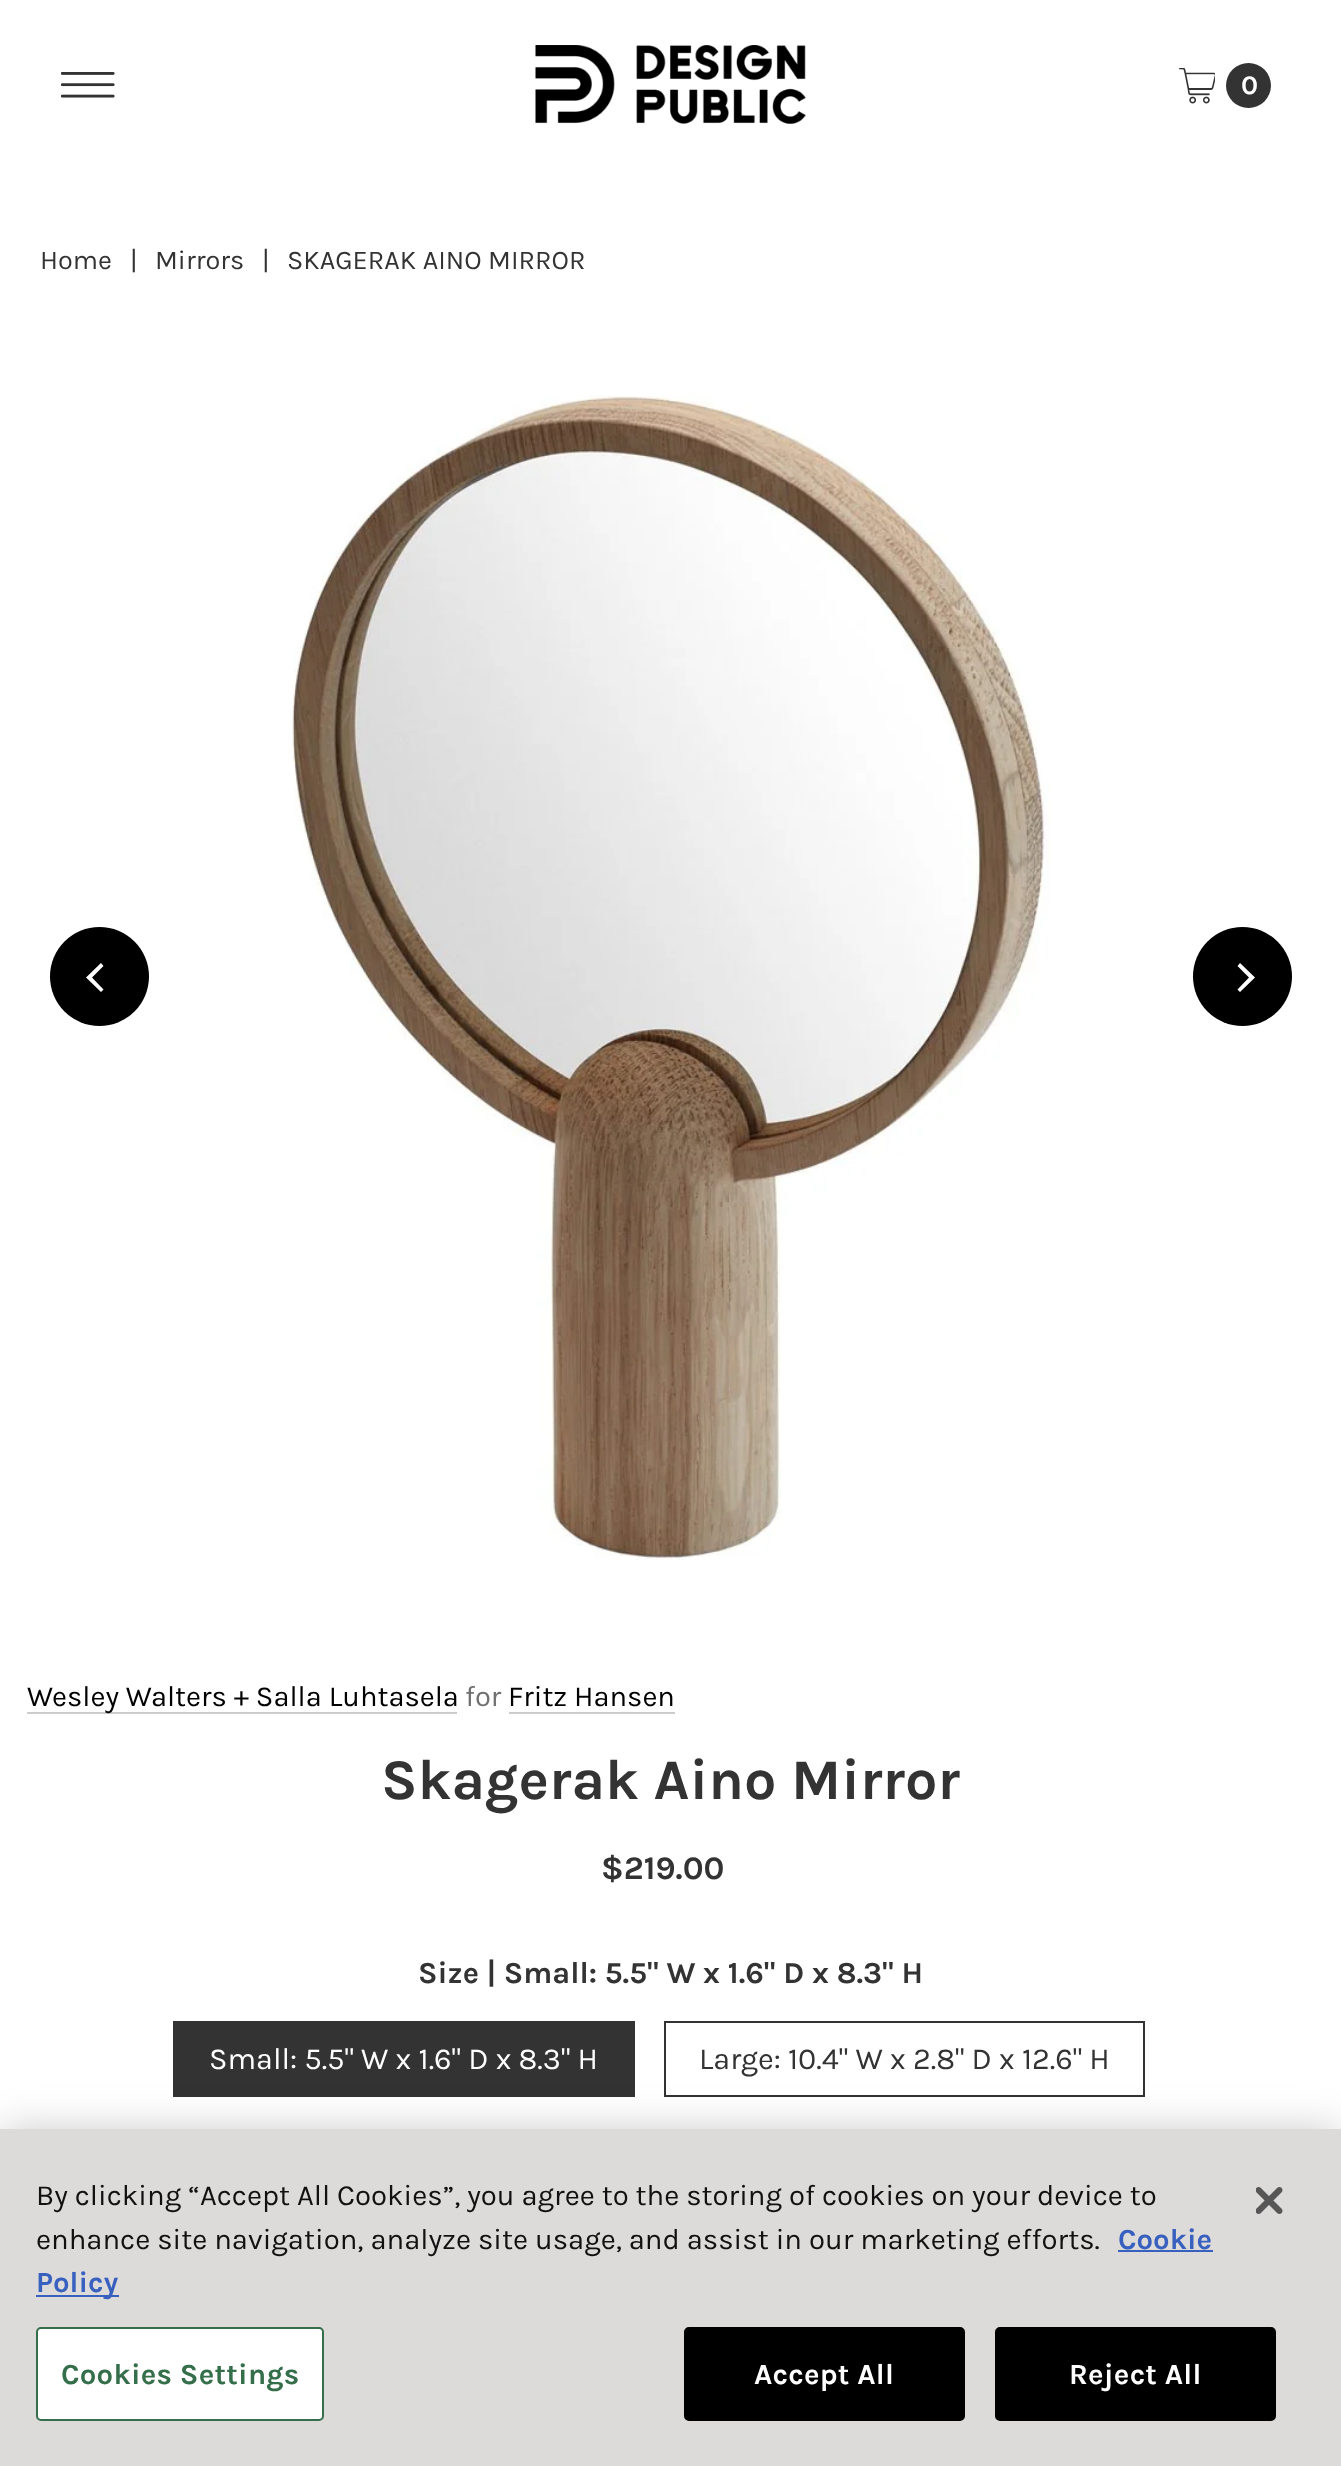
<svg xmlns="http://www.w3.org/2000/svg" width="1341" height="2466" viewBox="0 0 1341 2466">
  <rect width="100%" height="100%" fill="rgb(255,255,255)"/>
  <image x="61" y="72" width="54" height="26" href="pic1.png"/>
  <image x="535" y="45" width="271" height="79" href="pic2.png"/>
  <image x="1179" y="68" width="36" height="36" href="pic3.png"/>
  <circle cx="1248.5" cy="85.5" r="22.5" fill="rgb(51,51,51)"/>
  <text x="1241" y="94" font-family="Karla" font-size="27" font-weight="bold" fill="rgb(255,255,255)">0</text>
  <g font-family="Karla" font-size="27" fill="rgb(51,51,51)">
    <text x="40" y="269">Home</text>
    <text x="130" y="269">|</text>
    <text x="155" y="269">Mirrors</text>
    <text x="262" y="269">|</text>
    <text x="287" y="269">SKAGERAK AINO MIRROR</text>
  </g>
  <circle cx="99.5" cy="976.5" r="49.5" fill="rgb(0,0,0)"/>
  <path d="M86 977.5L101 992L103.5 989.5L92 977.5L103.5 966L101 963Z" fill="rgb(255,255,255)"/>
  <image x="292" y="395" width="760" height="1165" href="pic4.png"/>
  <circle cx="1242.5" cy="976.5" r="49.5" fill="rgb(0,0,0)"/>
  <path d="M1255 977.5L1240 963L1237.5 966L1249 977.5L1237.5 989.5L1240 992Z" fill="rgb(255,255,255)"/>
  <rect x="27" y="1712" width="430" height="2" fill="rgb(204,204,204)"/>
  <text x="27" y="1706" font-family="Karla" font-size="29.1" fill="rgb(0,0,0)">Wesley Walters + Salla Luhtasela</text>
  <text x="465" y="1706" font-family="Karla" font-size="29.1" fill="rgb(112,112,112)">for</text>
  <text x="508" y="1706" font-family="Karla" font-size="29.1" fill="rgb(0,0,0)">Fritz Hansen</text>
  <rect x="509" y="1712" width="166" height="2" fill="rgb(204,204,204)"/>
  <text x="381" y="1799" font-family="Karla" font-size="57.4" font-weight="bold" fill="rgb(51,51,51)">Skagerak Aino Mirror</text>
  <text x="601" y="1879" font-family="Karla" font-size="33" font-weight="bold" fill="rgb(51,51,51)">$219.00</text>
  <text x="418" y="1983" font-family="Karla" font-size="30.6" font-weight="bold" fill="rgb(51,51,51)">Size | Small: 5.5" W x 1.6" D x 8.3" H</text>
  <rect x="173" y="2021" width="462" height="76" fill="rgb(51,51,51)"/>
  <text x="209" y="2069" font-family="Karla" font-size="30.6" fill="rgb(255,255,255)">Small: 5.5" W x 1.6" D x 8.3" H</text>
  <rect x="665" y="2022" width="479" height="74" fill="none" stroke="rgb(51,51,51)" stroke-width="2"/>
  <text x="699" y="2069" font-family="Karla" font-size="30.6" fill="rgb(51,51,51)">Large: 10.4" W x 2.8" D x 12.6" H</text>
  <rect x="0" y="2129" width="1341" height="337" fill="rgba(0,0,0,0.2)" filter="blur(20px)"/>
  <rect x="0" y="2129" width="1341" height="337" fill="rgb(221,218,218)"/>
  <g font-family="Karla" font-size="29.25" fill="rgb(18,17,17)">
    <text>
      <tspan x="36" y="2205">By clicking “Accept All Cookies”, you agree to the storing of cookies on your device to</tspan>
      <tspan x="36" y="2249">enhance site navigation, analyze site usage, and assist in our marketing efforts.</tspan>
    </text>
  </g>
  <text x="1118" y="2249" font-family="Karla" font-size="29.25" font-weight="bold" fill="rgb(56,96,190)">Cookie</text>
  <rect x="1118" y="2250" width="95" height="2" fill="rgb(56,96,190)"/>
  <rect x="36" y="2295" width="83" height="2" fill="rgb(56,96,190)"/>
  <text x="36" y="2292" font-family="Karla" font-size="29.25" font-weight="bold" fill="rgb(56,96,190)">Policy</text>
  <rect x="37" y="2328" width="286" height="92" rx="4" fill="rgb(255,255,255)" stroke="rgb(52,110,74)" stroke-width="2"/>
  <text x="61" y="2384" font-family="Karla" font-size="29.25" font-weight="bold" letter-spacing="0.25" fill="rgb(52,110,74)">Cookies Settings</text>
  <rect x="685" y="2328" width="279" height="92" rx="4" fill="rgb(0,0,0)" stroke="rgb(0,0,0)" stroke-width="2"/>
  <text x="754" y="2384" font-family="Karla" font-size="29.25" font-weight="bold" letter-spacing="0.25" fill="rgb(255,255,255)">Accept All</text>
  <rect x="996" y="2328" width="279" height="92" rx="4" fill="rgb(0,0,0)" stroke="rgb(0,0,0)" stroke-width="2"/>
  <text x="1069" y="2384" font-family="Karla" font-size="29.25" font-weight="bold" letter-spacing="0.25" fill="rgb(255,255,255)">Reject All</text>
  <image x="1256" y="2187" width="27" height="27" href="pic5.png"/>
</svg>
